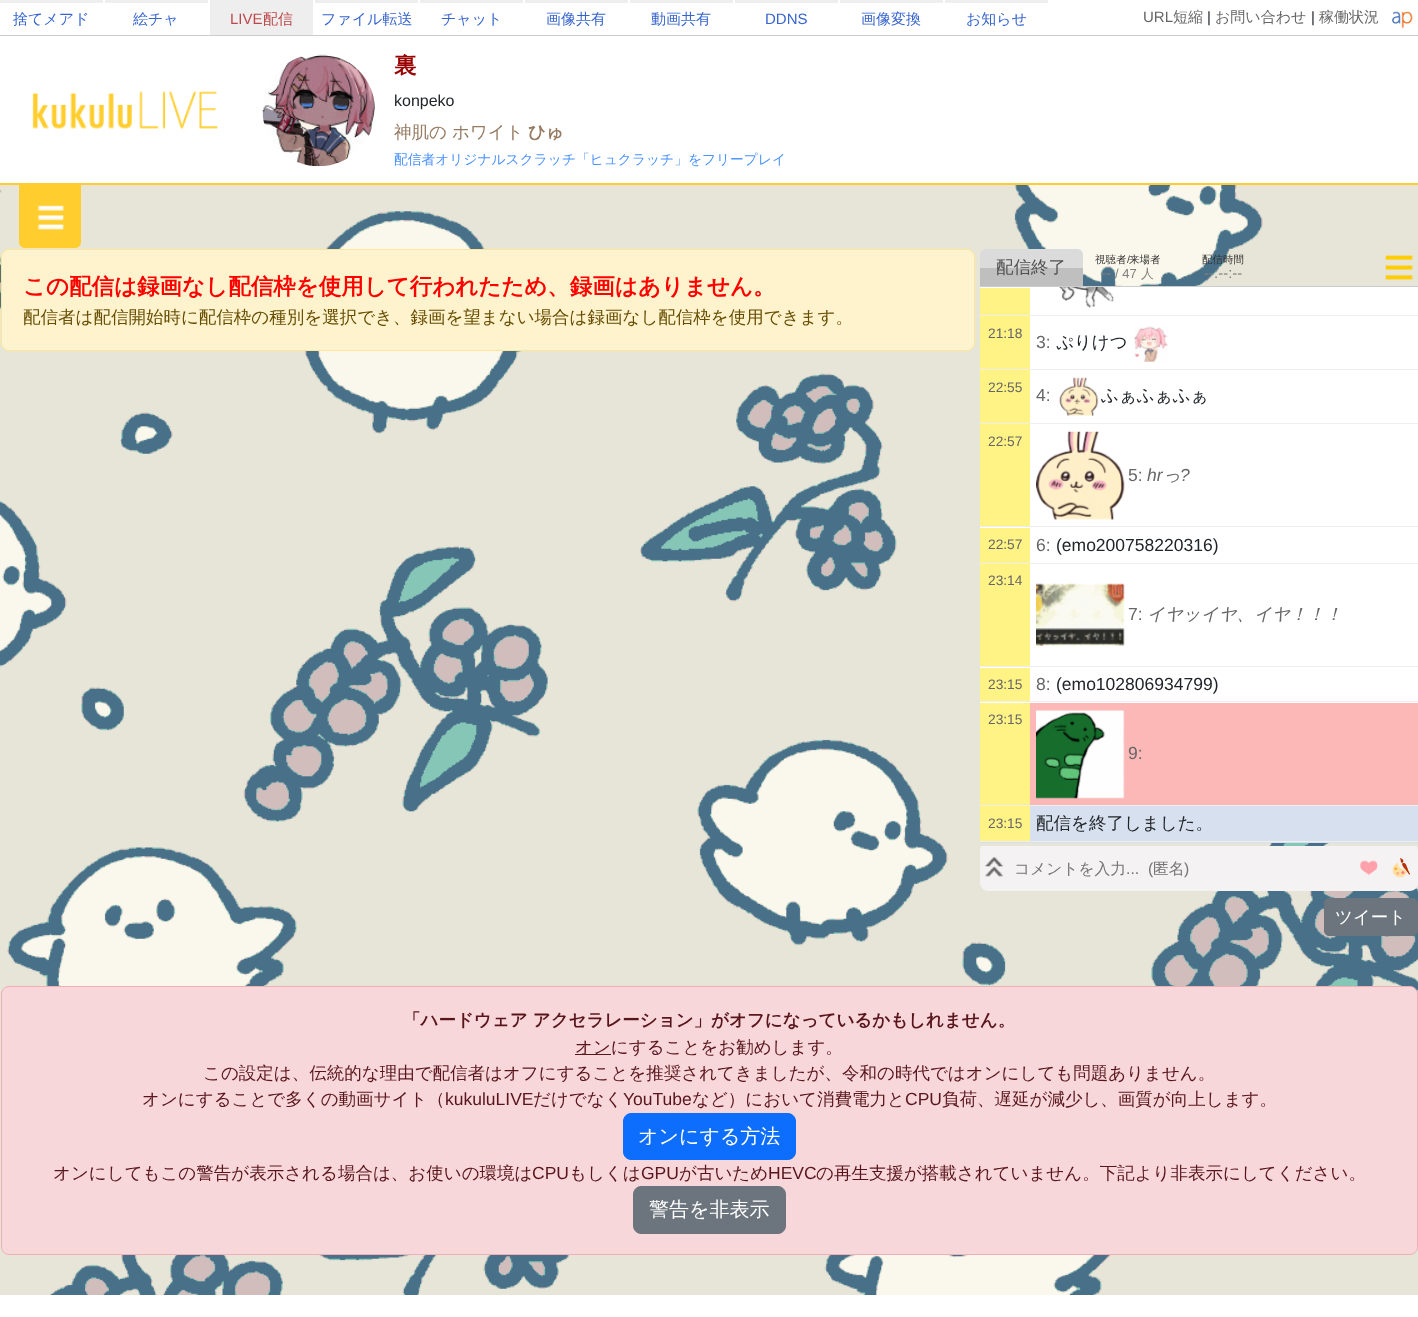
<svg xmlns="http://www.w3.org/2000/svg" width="1418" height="1317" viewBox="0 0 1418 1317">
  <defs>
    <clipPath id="clip1"><rect x="980" y="843" width="438" height="48" rx="8"/></clipPath>
  </defs>
  <rect width="100%" height="100%" fill="rgb(255,255,255)"/>
  <rect x="0" y="35" width="1418" height="1" fill="rgb(204,204,204)"/>
  <rect x="0" y="0" width="103" height="3" fill="rgb(238,238,238)"/>
  <text x="13" y="24" font-family="WenQuanYi Zen Hei" font-size="15" font-weight="500" fill="rgb(55,101,206)">捨てメアド</text>
  <rect x="105" y="0" width="103" height="3" fill="rgb(238,238,238)"/>
  <text x="133" y="24" font-family="WenQuanYi Zen Hei" font-size="15" font-weight="500" fill="rgb(55,101,206)">絵チャ</text>
  <rect x="210" y="0" width="103" height="35" fill="rgb(238,238,238)"/>
  <text x="230" y="24" font-family="Liberation Sans" font-size="15" fill="rgb(189,72,75)">LIVE</text>
  <text x="263" y="24" font-family="WenQuanYi Zen Hei" font-size="15" font-weight="500" fill="rgb(189,72,75)">配信</text>
  <rect x="315" y="0" width="103" height="3" fill="rgb(238,238,238)"/>
  <text x="321" y="24" font-family="WenQuanYi Zen Hei" font-size="15" font-weight="500" fill="rgb(55,101,206)">ファイル転送</text>
  <rect x="420" y="0" width="103" height="3" fill="rgb(238,238,238)"/>
  <text x="441" y="24" font-family="WenQuanYi Zen Hei" font-size="15" font-weight="500" fill="rgb(55,101,206)">チャット</text>
  <rect x="525" y="0" width="103" height="3" fill="rgb(238,238,238)"/>
  <text x="546" y="24" font-family="WenQuanYi Zen Hei" font-size="15" font-weight="500" fill="rgb(55,101,206)">画像共有</text>
  <rect x="630" y="0" width="103" height="3" fill="rgb(238,238,238)"/>
  <text x="651" y="24" font-family="WenQuanYi Zen Hei" font-size="15" font-weight="500" fill="rgb(55,101,206)">動画共有</text>
  <rect x="735" y="0" width="103" height="3" fill="rgb(238,238,238)"/>
  <text x="765" y="24" font-family="Liberation Sans" font-size="15" fill="rgb(55,101,206)">DDNS</text>
  <rect x="840" y="0" width="103" height="3" fill="rgb(238,238,238)"/>
  <text x="861" y="24" font-family="WenQuanYi Zen Hei" font-size="15" font-weight="500" fill="rgb(55,101,206)">画像変換</text>
  <rect x="945" y="0" width="103" height="3" fill="rgb(238,238,238)"/>
  <text x="966" y="24" font-family="WenQuanYi Zen Hei" font-size="15" font-weight="500" fill="rgb(55,101,206)">お知らせ</text>
  <text x="1143" y="22" font-family="Liberation Sans" font-size="15" fill="rgb(102,102,102)">URL</text>
  <text x="1173" y="22" font-family="WenQuanYi Zen Hei" font-size="15" font-weight="500" fill="rgb(102,102,102)">短縮</text>
  <text x="1207" y="22" font-family="Liberation Sans" font-size="15" fill="rgb(33,37,41)">|</text>
  <text x="1215" y="22" font-family="WenQuanYi Zen Hei" font-size="15" font-weight="500" fill="rgb(102,102,102)">お問い合わせ</text>
  <text x="1311" y="22" font-family="Liberation Sans" font-size="15" fill="rgb(33,37,41)">|</text>
  <text x="1319" y="22" font-family="WenQuanYi Zen Hei" font-size="15" font-weight="500" fill="rgb(102,102,102)">稼働状況</text>
  <image x="1392" y="11" width="21" height="17" href="pic1.png"/>
  <rect x="0" y="183" width="1418" height="2" fill="rgb(255,205,45)"/>
  <image x="32" y="91" width="186" height="38" href="pic2.png"/>
  <image x="262" y="54" width="113" height="113" href="pic3.png"/>
  <text x="394" y="73" font-family="WenQuanYi Zen Hei" font-size="22.5" font-weight="bold" fill="rgb(153,0,0)">裏</text>
  <text x="394" y="106" font-family="Liberation Sans" font-size="16" fill="rgb(33,37,41)">konpeko</text>
  <g font-family="WenQuanYi Zen Hei" font-size="17.5" font-weight="500" fill="rgb(150,123,98)">
    <text x="394" y="138">神肌の</text>
    <text x="452" y="138">ホワイト</text>
  </g>
  <text x="528" y="138" font-family="WenQuanYi Zen Hei" font-size="17.5" font-weight="bold" fill="rgb(150,123,98)">ひゅ</text>
  <text x="394" y="164" font-family="WenQuanYi Zen Hei" font-size="13.75" font-weight="500" fill="rgb(74,146,254)">配信者オリジナルスクラッチ「ヒュクラッチ」をフリープレイ</text>
  <image x="0" y="185" width="1418" height="1110" href="pic5.png"/>
  <path d="M19 185H81V242C81 245.5 78.5 248 75 248H25C21.5 248 19 245.5 19 242Z" fill="rgb(255,205,45)"/>
  <image x="37" y="205" width="27" height="25" href="pic4.png"/>
  <rect x="1.5" y="249.5" width="973" height="101" rx="7.5" fill="rgb(255,243,205)" stroke="rgb(255,230,156)"/>
  <text x="23" y="294" font-family="WenQuanYi Zen Hei" font-size="22.5" font-weight="bold" fill="rgb(255,0,0)">この配信は録画なし配信枠を使用して行われたため、録画はありません。</text>
  <text x="23" y="323" font-family="WenQuanYi Zen Hei" font-size="17.5" font-weight="500" fill="rgb(102,77,3)">配信者は配信開始時に配信枠の種別を選択でき、録画を望まない場合は録画なし配信枠を使用できます。</text>
  <path d="M986 249H1077C1080.5 249 1083 251.5 1083 255V268H980V255C980 251.5 982.5 249 986 249Z" fill="rgb(219,219,219)"/>
  <rect x="980" y="268" width="103" height="18" fill="rgb(191,191,191)"/>
  <text x="996" y="273" font-family="WenQuanYi Zen Hei" font-size="17.5" font-weight="500" fill="rgb(80,80,80)">配信終了</text>
  <text x="1095" y="263" font-family="WenQuanYi Zen Hei" font-size="10.5" font-weight="500" fill="rgb(51,51,51)">視聴者</text>
  <text x="1127" y="263" font-family="Liberation Sans" font-size="10.5" fill="rgb(51,51,51)">/</text>
  <text x="1129" y="263" font-family="WenQuanYi Zen Hei" font-size="10.5" font-weight="500" fill="rgb(51,51,51)">来場者</text>
  <text x="1101" y="278" font-family="Liberation Sans" font-size="15" fill="rgb(128,128,128)">--</text>
  <text x="1115" y="278" font-family="Liberation Sans" font-size="13" fill="rgb(128,128,128)">/ 47</text>
  <text x="1141" y="278" font-family="WenQuanYi Zen Hei" font-size="13" font-weight="500" fill="rgb(128,128,128)">人</text>
  <text x="1202" y="263" font-family="WenQuanYi Zen Hei" font-size="10.5" font-weight="500" fill="rgb(51,51,51)">配信時間</text>
  <text x="1204" y="278" font-family="Liberation Sans" font-size="15" fill="rgb(128,128,128)">--:--:--</text>
  <image x="1385" y="255" width="28" height="25" href="pic6.png"/>
  <rect x="980" y="287" width="438" height="416" fill="rgb(255,255,255)"/>
  <rect x="980" y="286" width="438" height="1" fill="rgb(204,204,204)"/>
  <rect x="980" y="315" width="438" height="1" fill="rgb(238,238,238)"/>
  <rect x="980" y="288" width="50" height="27" fill="rgb(255,243,134)"/>
  <image x="1059" y="287" width="55" height="21" href="pic7.png"/>
  <rect x="980" y="369" width="438" height="1" fill="rgb(238,238,238)"/>
  <rect x="980" y="316" width="50" height="53" fill="rgb(255,243,134)"/>
  <text x="988" y="338" font-family="Liberation Sans" font-size="13.75" fill="rgb(102,102,102)">21:18</text>
  <text x="1036" y="348" font-family="Liberation Sans" font-size="17.5" fill="rgb(102,102,102)">3:</text>
  <text x="1056" y="348" font-family="WenQuanYi Zen Hei" font-size="17.5" font-weight="500" fill="rgb(33,37,41)">ぷりけつ</text>
  <image x="1134" y="326" width="34" height="36" href="pic8.png"/>
  <rect x="980" y="423" width="438" height="1" fill="rgb(238,238,238)"/>
  <rect x="980" y="370" width="50" height="53" fill="rgb(255,243,134)"/>
  <text x="988" y="392" font-family="Liberation Sans" font-size="13.75" fill="rgb(102,102,102)">22:55</text>
  <text x="1036" y="401" font-family="Liberation Sans" font-size="17.5" fill="rgb(102,102,102)">4:</text>
  <image x="1059" y="377" width="40" height="39" href="pic9.png"/>
  <text x="1101" y="401" font-family="WenQuanYi Zen Hei" font-size="17.5" font-weight="500" fill="rgb(33,37,41)">ふぁふぁふぁ</text>
  <rect x="980" y="526" width="438" height="1" fill="rgb(238,238,238)"/>
  <rect x="980" y="424" width="50" height="102" fill="rgb(255,243,134)"/>
  <text x="988" y="446" font-family="Liberation Sans" font-size="13.75" fill="rgb(102,102,102)">22:57</text>
  <image x="1036" y="431" width="89" height="89" href="pic10.png"/>
  <text x="1128" y="481" font-family="Liberation Sans" font-size="17.5" fill="rgb(102,102,102)">5:</text>
  <text x="1147" y="481" font-family="Liberation Sans" font-size="17.5" font-style="italic" fill="rgb(102,102,102)">hr</text>
  <text x="1163" y="481" font-family="WenQuanYi Zen Hei" font-size="17.5" font-weight="500" font-style="italic" fill="rgb(102,102,102)">っ</text>
  <text x="1180" y="481" font-family="Liberation Sans" font-size="17.5" font-style="italic" fill="rgb(102,102,102)">?</text>
  <rect x="980" y="563" width="438" height="1" fill="rgb(238,238,238)"/>
  <rect x="980" y="528" width="50" height="35" fill="rgb(255,243,134)"/>
  <text x="988" y="549" font-family="Liberation Sans" font-size="13.75" fill="rgb(102,102,102)">22:57</text>
  <text x="1036" y="551" font-family="Liberation Sans" font-size="17.5" fill="rgb(102,102,102)">6:</text>
  <text x="1056" y="551" font-family="Liberation Sans" font-size="17.5" fill="rgb(33,37,41)">(emo200758220316)</text>
  <rect x="980" y="666" width="438" height="1" fill="rgb(238,238,238)"/>
  <rect x="980" y="564" width="50" height="102" fill="rgb(255,243,134)"/>
  <text x="988" y="585" font-family="Liberation Sans" font-size="13.75" fill="rgb(102,102,102)">23:14</text>
  <image x="1036" y="583" width="89" height="63" href="pic11.png"/>
  <text x="1128" y="620" font-family="Liberation Sans" font-size="17.5" fill="rgb(102,102,102)">7:</text>
  <text x="1147" y="620" font-family="WenQuanYi Zen Hei" font-size="17.5" font-weight="500" font-style="italic" fill="rgb(102,102,102)">イヤッイヤ、イヤ！！！</text>
  <rect x="980" y="701" width="438" height="1" fill="rgb(238,238,238)"/>
  <rect x="980" y="668" width="50" height="33" fill="rgb(255,243,134)"/>
  <text x="988" y="689" font-family="Liberation Sans" font-size="13.75" fill="rgb(102,102,102)">23:15</text>
  <text x="1036" y="690" font-family="Liberation Sans" font-size="17.5" fill="rgb(102,102,102)">8:</text>
  <text x="1056" y="690" font-family="Liberation Sans" font-size="17.5" fill="rgb(33,37,41)">(emo102806934799)</text>
  <rect x="1030" y="703" width="388" height="102" fill="rgb(252,183,183)"/>
  <rect x="980" y="805" width="438" height="1" fill="rgb(238,238,238)"/>
  <rect x="980" y="703" width="50" height="102" fill="rgb(255,243,134)"/>
  <text x="988" y="724" font-family="Liberation Sans" font-size="13.75" fill="rgb(102,102,102)">23:15</text>
  <image x="1036" y="709" width="89" height="90" href="pic12.png"/>
  <text x="1128" y="759" font-family="Liberation Sans" font-size="17.5" fill="rgb(102,102,102)">9:</text>
  <rect x="980" y="806" width="438" height="37" fill="rgb(215,224,239)"/>
  <rect x="980" y="841" width="438" height="1" fill="rgb(238,238,238)"/>
  <rect x="980" y="806" width="50" height="35" fill="rgb(255,243,134)"/>
  <text x="988" y="828" font-family="Liberation Sans" font-size="13.75" fill="rgb(102,102,102)">23:15</text>
  <text x="1036" y="829" font-family="WenQuanYi Zen Hei" font-size="17.5" font-weight="500" fill="rgb(33,37,41)">配信を終了しました。</text>
  <g clip-path="url(#clip1)">
    <path d="M980 846H1418V883C1418 887.5 1414.5 891 1410 891H988C983.5 891 980 887.5 980 883Z" fill="rgb(255,255,255)"/>
    <path d="M980 846H1418V883C1418 887.5 1414.5 891 1410 891H988C983.5 891 980 887.5 980 883Z" fill="rgba(230,227,227,0.45)"/>
  </g>
  <image x="985" y="857" width="19" height="20" href="pic13.png"/>
  <text x="1014" y="874" font-family="WenQuanYi Zen Hei" font-size="15.75" font-weight="500" fill="rgb(117,117,117)">コメントを入力</text>
  <text x="1126" y="874" font-family="Liberation Sans" font-size="15.75" fill="rgb(117,117,117)" xml:space="preserve">...  (</text>
  <text x="1153" y="874" font-family="WenQuanYi Zen Hei" font-size="15.75" font-weight="500" fill="rgb(117,117,117)">匿名</text>
  <text x="1184" y="874" font-family="Liberation Sans" font-size="15.75" fill="rgb(117,117,117)">)</text>
  <image x="1360" y="860" width="18" height="15" href="pic14.png"/>
  <image x="1392" y="858" width="18" height="20" href="pic15.png"/>
  <rect x="1324.5" y="898.5" width="93" height="37" rx="4.5" fill="rgb(108,117,125)" stroke="rgb(108,117,125)"/>
  <text x="1335" y="923" font-family="WenQuanYi Zen Hei" font-size="17.5" font-weight="500" fill="rgb(255,255,255)">ツイート</text>
  <rect x="1.5" y="986.5" width="1416" height="268" rx="7.5" fill="rgb(248,215,218)" stroke="rgb(241,174,181)"/>
  <text x="403" y="1026" font-family="WenQuanYi Zen Hei" font-size="17.5" font-weight="bold" fill="rgb(88,21,28)">「ハードウェア アクセラレーション」がオフになっているかもしれません。</text>
  <rect x="575" y="1054" width="36" height="1" fill="rgb(88,21,28)"/>
  <g font-family="WenQuanYi Zen Hei" font-size="17.5" font-weight="500" fill="rgb(88,21,28)">
    <text x="575" y="1053">オンにすることをお勧めします。</text>
    <text x="203" y="1079">この設定は、伝統的な理由で配信者はオフにすることを推奨されてきましたが、令和の時代ではオンにしても問題ありません。</text>
    <text x="142" y="1105">オンにすることで多くの動画サイト（</text>
  </g>
  <text x="445" y="1105" font-family="Liberation Sans" font-size="17.5" fill="rgb(88,21,28)">kukuluLIVE</text>
  <text x="533" y="1105" font-family="WenQuanYi Zen Hei" font-size="17.5" font-weight="500" fill="rgb(88,21,28)">だけでなく</text>
  <text x="623" y="1105" font-family="Liberation Sans" font-size="17.5" fill="rgb(88,21,28)">YouTube</text>
  <text x="692" y="1105" font-family="WenQuanYi Zen Hei" font-size="17.5" font-weight="500" fill="rgb(88,21,28)">など）において消費電力と</text>
  <text x="905" y="1105" font-family="Liberation Sans" font-size="17.5" fill="rgb(88,21,28)">CPU</text>
  <text x="942" y="1105" font-family="WenQuanYi Zen Hei" font-size="17.5" font-weight="500" fill="rgb(88,21,28)">負荷、遅延が減少し、画質が向上します。</text>
  <rect x="623.5" y="1113.5" width="172" height="46" rx="7.5" fill="rgb(13,110,253)" stroke="rgb(13,110,253)"/>
  <text x="638" y="1143" font-family="WenQuanYi Zen Hei" font-size="20" font-weight="500" fill="rgb(255,255,255)">オンにする方法</text>
  <text x="53" y="1179" font-family="WenQuanYi Zen Hei" font-size="17.5" font-weight="500" fill="rgb(88,21,28)">オンにしてもこの警告が表示される場合は、お使いの環境は</text>
  <text x="532" y="1179" font-family="Liberation Sans" font-size="17.5" fill="rgb(88,21,28)">CPU</text>
  <text x="569" y="1179" font-family="WenQuanYi Zen Hei" font-size="17.5" font-weight="500" fill="rgb(88,21,28)">もしくは</text>
  <text x="641" y="1179" font-family="Liberation Sans" font-size="17.5" fill="rgb(88,21,28)">GPU</text>
  <text x="679" y="1179" font-family="WenQuanYi Zen Hei" font-size="17.5" font-weight="500" fill="rgb(88,21,28)">が古いため</text>
  <text x="768" y="1179" font-family="Liberation Sans" font-size="17.5" fill="rgb(88,21,28)">HEVC</text>
  <text x="816" y="1179" font-family="WenQuanYi Zen Hei" font-size="17.5" font-weight="500" fill="rgb(88,21,28)">の再生支援が搭載されていません。下記より非表示にしてください。</text>
  <rect x="633.5" y="1186.5" width="152" height="47" rx="7.5" fill="rgb(108,117,125)" stroke="rgb(108,117,125)"/>
  <text x="649" y="1216" font-family="WenQuanYi Zen Hei" font-size="20" font-weight="500" fill="rgb(255,255,255)">警告を非表示</text>
</svg>
